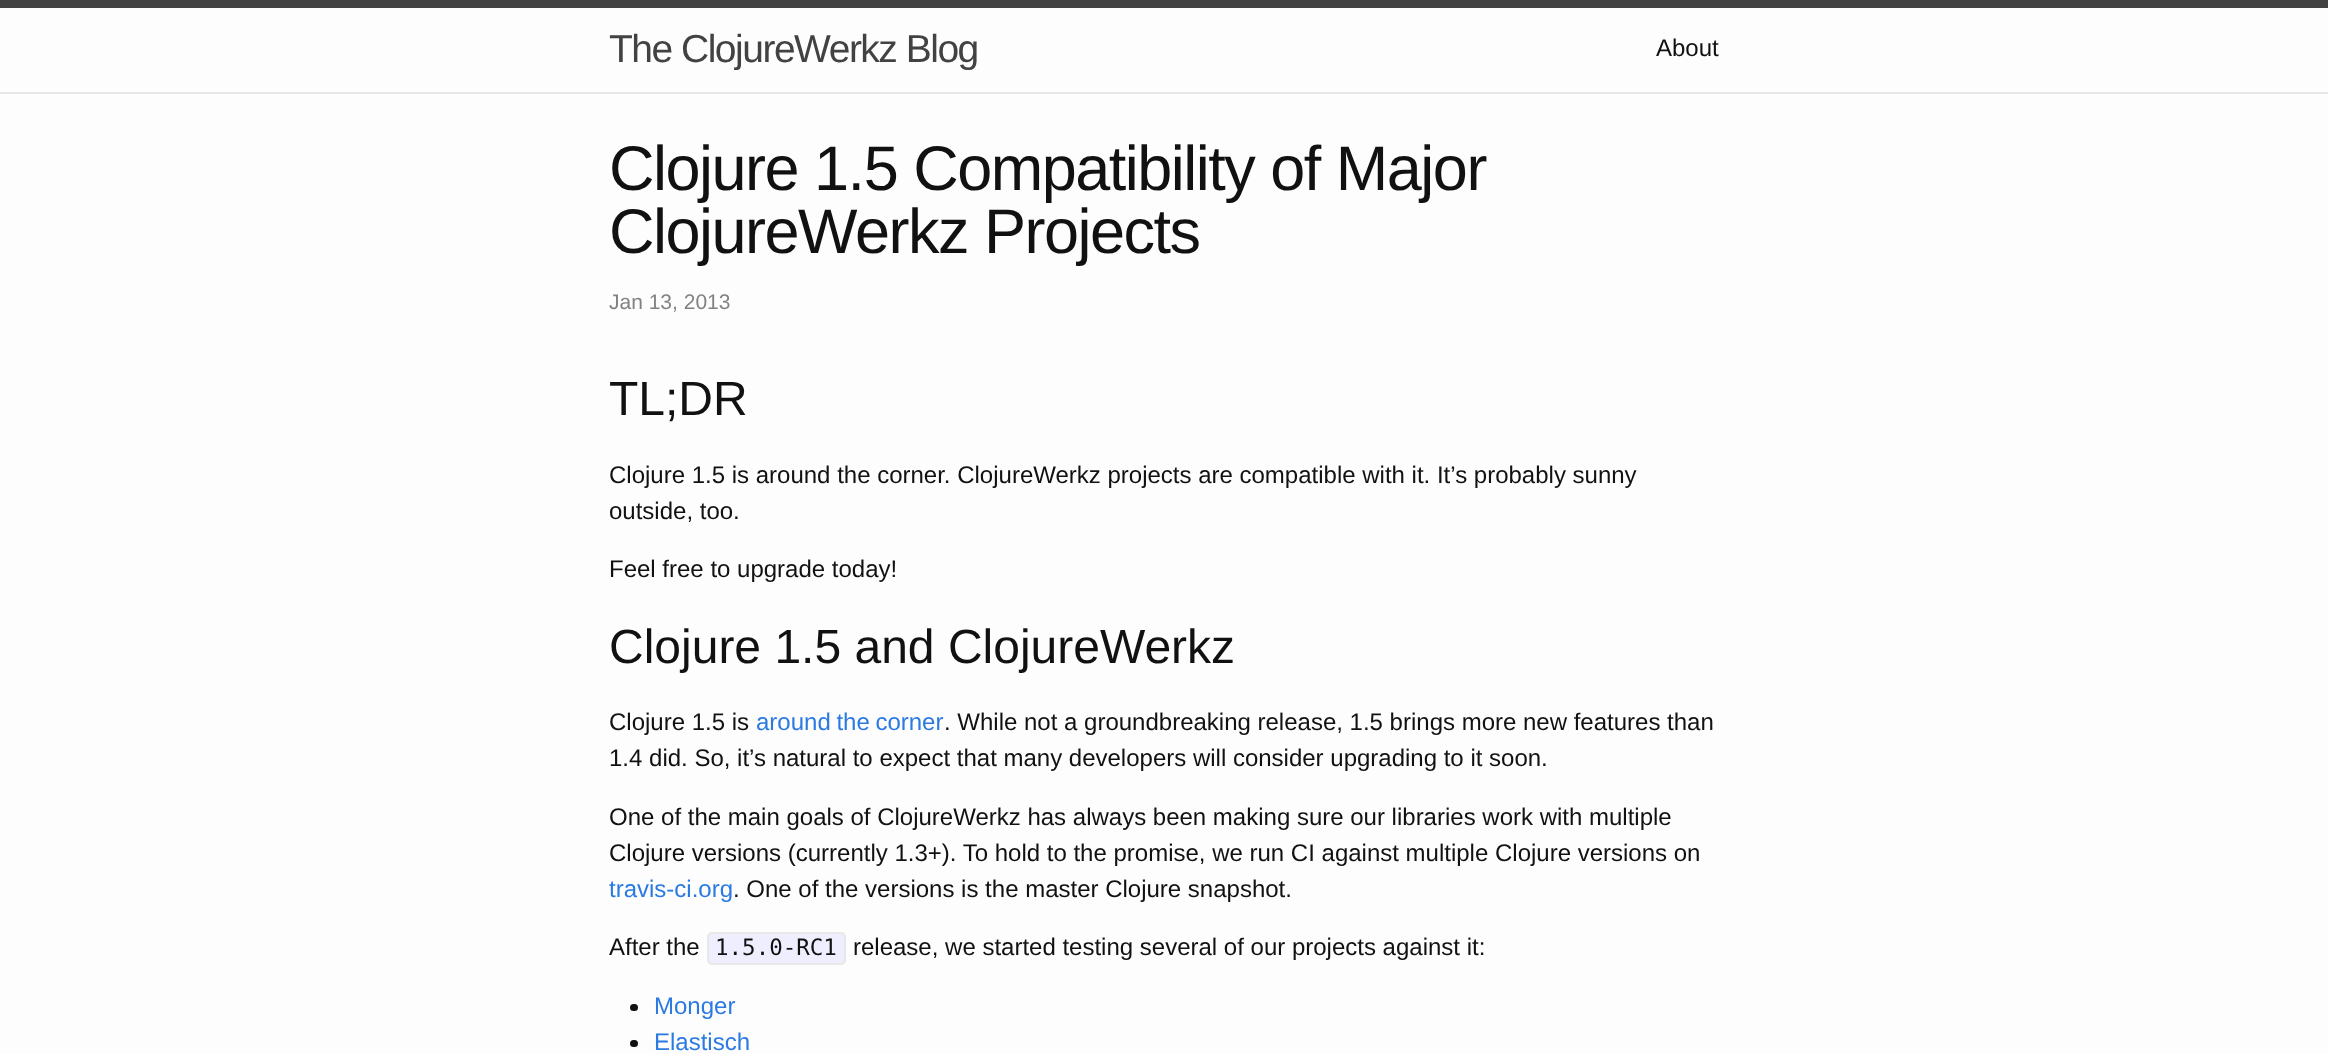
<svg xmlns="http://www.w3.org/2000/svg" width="2328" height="1054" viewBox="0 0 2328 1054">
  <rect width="100%" height="100%" fill="rgb(253,253,253)"/>
  <rect x="0" y="0" width="2328" height="8" fill="rgb(66,66,66)"/>
  <rect x="0" y="92" width="2328" height="2" fill="rgb(232,232,232)"/>
  <text x="609" y="62" font-family="Liberation Sans" font-size="39" letter-spacing="-1.5" fill="rgb(66,66,66)">The ClojureWerkz Blog</text>
  <text x="1656" y="56" font-family="Liberation Sans" font-size="24" fill="rgb(17,17,17)">About</text>
  <g font-family="Liberation Sans" font-size="63" letter-spacing="-1.5" fill="rgb(17,17,17)">
    <text>
      <tspan x="609" y="190">Clojure 1.5 Compatibility of Major</tspan>
      <tspan x="609" y="253">ClojureWerkz Projects</tspan>
    </text>
  </g>
  <text x="609" y="309" font-family="Liberation Sans" font-size="21" fill="rgb(130,130,130)">Jan 13, 2013</text>
  <text x="609" y="415" font-family="Liberation Sans" font-size="48" fill="rgb(17,17,17)">TL;DR</text>
  <g font-family="Liberation Sans" font-size="24" fill="rgb(17,17,17)">
    <text>
      <tspan x="609" y="483">Clojure 1.5 is around the corner. ClojureWerkz projects are compatible with it. It’s probably sunny</tspan>
      <tspan x="609" y="519">outside, too.</tspan>
    </text>
    <text x="609" y="577">Feel free to upgrade today!</text>
  </g>
  <text x="609" y="663" font-family="Liberation Sans" font-size="48" fill="rgb(17,17,17)">Clojure 1.5 and ClojureWerkz</text>
  <text x="609" y="730" font-family="Liberation Sans" font-size="24" fill="rgb(17,17,17)">Clojure 1.5 is</text>
  <text x="756" y="730" word-spacing="-1" font-family="Liberation Sans" font-size="24" fill="rgb(42,122,226)">around the corner</text>
  <g font-family="Liberation Sans" font-size="24" fill="rgb(17,17,17)">
    <text x="944" y="730">. While not a groundbreaking release, 1.5 brings more new features than</text>
    <text x="609" y="766">1.4 did. So, it’s natural to expect that many developers will consider upgrading to it soon.</text>
    <text>
      <tspan x="609" y="825">One of the main goals of ClojureWerkz has always been making sure our libraries work with multiple</tspan>
      <tspan x="609" y="861">Clojure versions (currently 1.3+). To hold to the promise, we run CI against multiple Clojure versions on</tspan>
    </text>
  </g>
  <text x="609" y="897" font-family="Liberation Sans" font-size="24" fill="rgb(42,122,226)">travis-ci.org</text>
  <g font-family="Liberation Sans" font-size="24" fill="rgb(17,17,17)">
    <text x="733" y="897">. One of the versions is the master Clojure snapshot.</text>
    <text x="609" y="955">After the</text>
  </g>
  <rect x="708" y="933" width="137" height="31" rx="4" fill="rgb(238,238,255)" stroke="rgb(232,232,232)" stroke-width="2"/>
  <text x="715" y="955" font-family="DejaVu Sans Mono" font-size="22.5" fill="rgb(17,17,17)">1.5.0-RC1</text>
  <text x="853" y="955" font-family="Liberation Sans" font-size="24" fill="rgb(17,17,17)">release, we started testing several of our projects against it:</text>
  <rect x="630" y="1004" width="8" height="7" rx="3.5" fill="rgb(17,17,17)"/>
  <text x="654" y="1014" font-family="Liberation Sans" font-size="24" fill="rgb(42,122,226)">Monger</text>
  <rect x="630" y="1040" width="8" height="7" rx="3.5" fill="rgb(17,17,17)"/>
  <text x="654" y="1050" font-family="Liberation Sans" font-size="24" fill="rgb(42,122,226)">Elastisch</text>
</svg>
